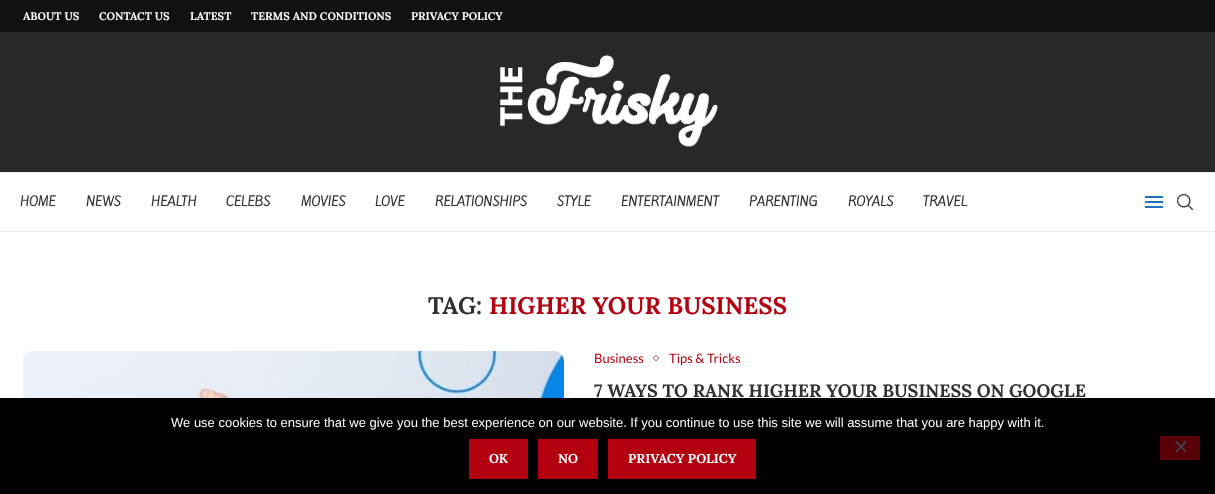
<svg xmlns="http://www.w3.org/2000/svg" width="1215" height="494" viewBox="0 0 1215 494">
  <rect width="100%" height="100%" fill="rgb(255,255,255)"/>
  <rect x="0" y="0" width="1215" height="32" fill="rgb(17,17,17)"/>
  <g font-family="Lora" font-size="11" font-weight="bold" fill="rgb(255,255,255)">
    <text x="23" y="20">ABOUT US</text>
    <text x="99" y="20">CONTACT US</text>
    <text x="190" y="20">LATEST</text>
    <text x="251" y="20">TERMS AND CONDITIONS</text>
    <text x="411" y="20">PRIVACY POLICY</text>
  </g>
  <rect x="0" y="32" width="1215" height="140" fill="rgb(40,40,40)"/>
  <image x="500" y="55" width="218" height="92" href="pic1.png"/>
  <rect x="0" y="172" width="1215" height="1" fill="rgb(236,236,236)"/>
  <rect x="0" y="231" width="1215" height="1" fill="rgb(236,236,236)"/>
  <g font-family="Kite One" font-size="12" font-weight="bold" fill="rgb(49,49,49)">
    <text x="20" y="206">HOME</text>
    <text x="86" y="206">NEWS</text>
    <text x="151" y="206">HEALTH</text>
    <text x="226" y="206">CELEBS</text>
    <text x="301" y="206">MOVIES</text>
    <text x="375" y="206">LOVE</text>
    <text x="435" y="206">RELATIONSHIPS</text>
    <text x="557" y="206">STYLE</text>
    <text x="621" y="206">ENTERTAINMENT</text>
    <text x="749" y="206">PARENTING</text>
    <text x="848" y="206">ROYALS</text>
    <text x="923" y="206">TRAVEL</text>
  </g>
  <rect x="1145" y="196" width="18" height="2" fill="rgb(30,115,190)"/>
  <rect x="1145" y="206" width="18" height="2" fill="rgb(30,115,190)"/>
  <rect x="1145" y="201" width="18" height="2" fill="rgb(30,115,190)"/>
  <image x="1177" y="194" width="16" height="16" href="pic2.png"/>
  <text x="428" y="314" font-family="Lora" font-size="24" font-weight="bold" fill="rgb(49,49,49)">TAG:</text>
  <text x="489" y="314" font-family="Lora" font-size="24" font-weight="bold" fill="rgb(179,0,16)">HIGHER YOUR BUSINESS</text>
  <rect x="23" y="351" width="541" height="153" rx="10" fill="rgb(245,245,245)"/>
  <image x="23" y="351" width="541" height="47" href="pic3.png"/>
  <text x="594" y="363" font-family="Lato" font-size="13" fill="rgb(179,0,16)">Business</text>
  <path d="M656 355.5L659 358L656 361L653 358Z" fill="none" stroke="rgb(206,89,100)"/>
  <text x="669" y="363" font-family="Lato" font-size="13" fill="rgb(179,0,16)">Tips &amp; Tricks</text>
  <text x="594" y="397" font-family="Lora" font-size="18" font-weight="bold" fill="rgb(49,49,49)">7 WAYS TO RANK HIGHER YOUR BUSINESS ON GOOGLE</text>
  <rect x="0" y="398" width="1215" height="96" fill="rgb(0,0,0)"/>
  <text x="171" y="427" font-family="Liberation Sans" font-size="13" fill="rgb(255,255,255)">We use cookies to ensure that we give you the best experience on our website. If you continue to use this site we will assume that you are happy with it.</text>
  <rect x="469" y="439" width="59" height="40" fill="rgb(179,0,16)"/>
  <text x="489" y="463" font-family="Lora" font-size="13" font-weight="bold" fill="rgb(255,255,255)">OK</text>
  <rect x="538" y="439" width="60" height="40" fill="rgb(179,0,16)"/>
  <text x="558" y="463" font-family="Lora" font-size="13" font-weight="bold" fill="rgb(255,255,255)">NO</text>
  <rect x="608" y="439" width="148" height="40" fill="rgb(179,0,16)"/>
  <text x="628" y="463" font-family="Lora" font-size="13" font-weight="bold" fill="rgb(255,255,255)">PRIVACY POLICY</text>
  <rect x="1160" y="436" width="40" height="24" fill="rgb(90,0,8)"/>
  <path d="M1185.5 440.5L1187 442L1176.5 452.5L1175 451.5Z" fill="rgb(64,64,64)"/>
  <path d="M1175 442L1176.5 440.5L1187 451.5L1185.5 452.5Z" fill="rgb(64,64,64)"/>
</svg>
